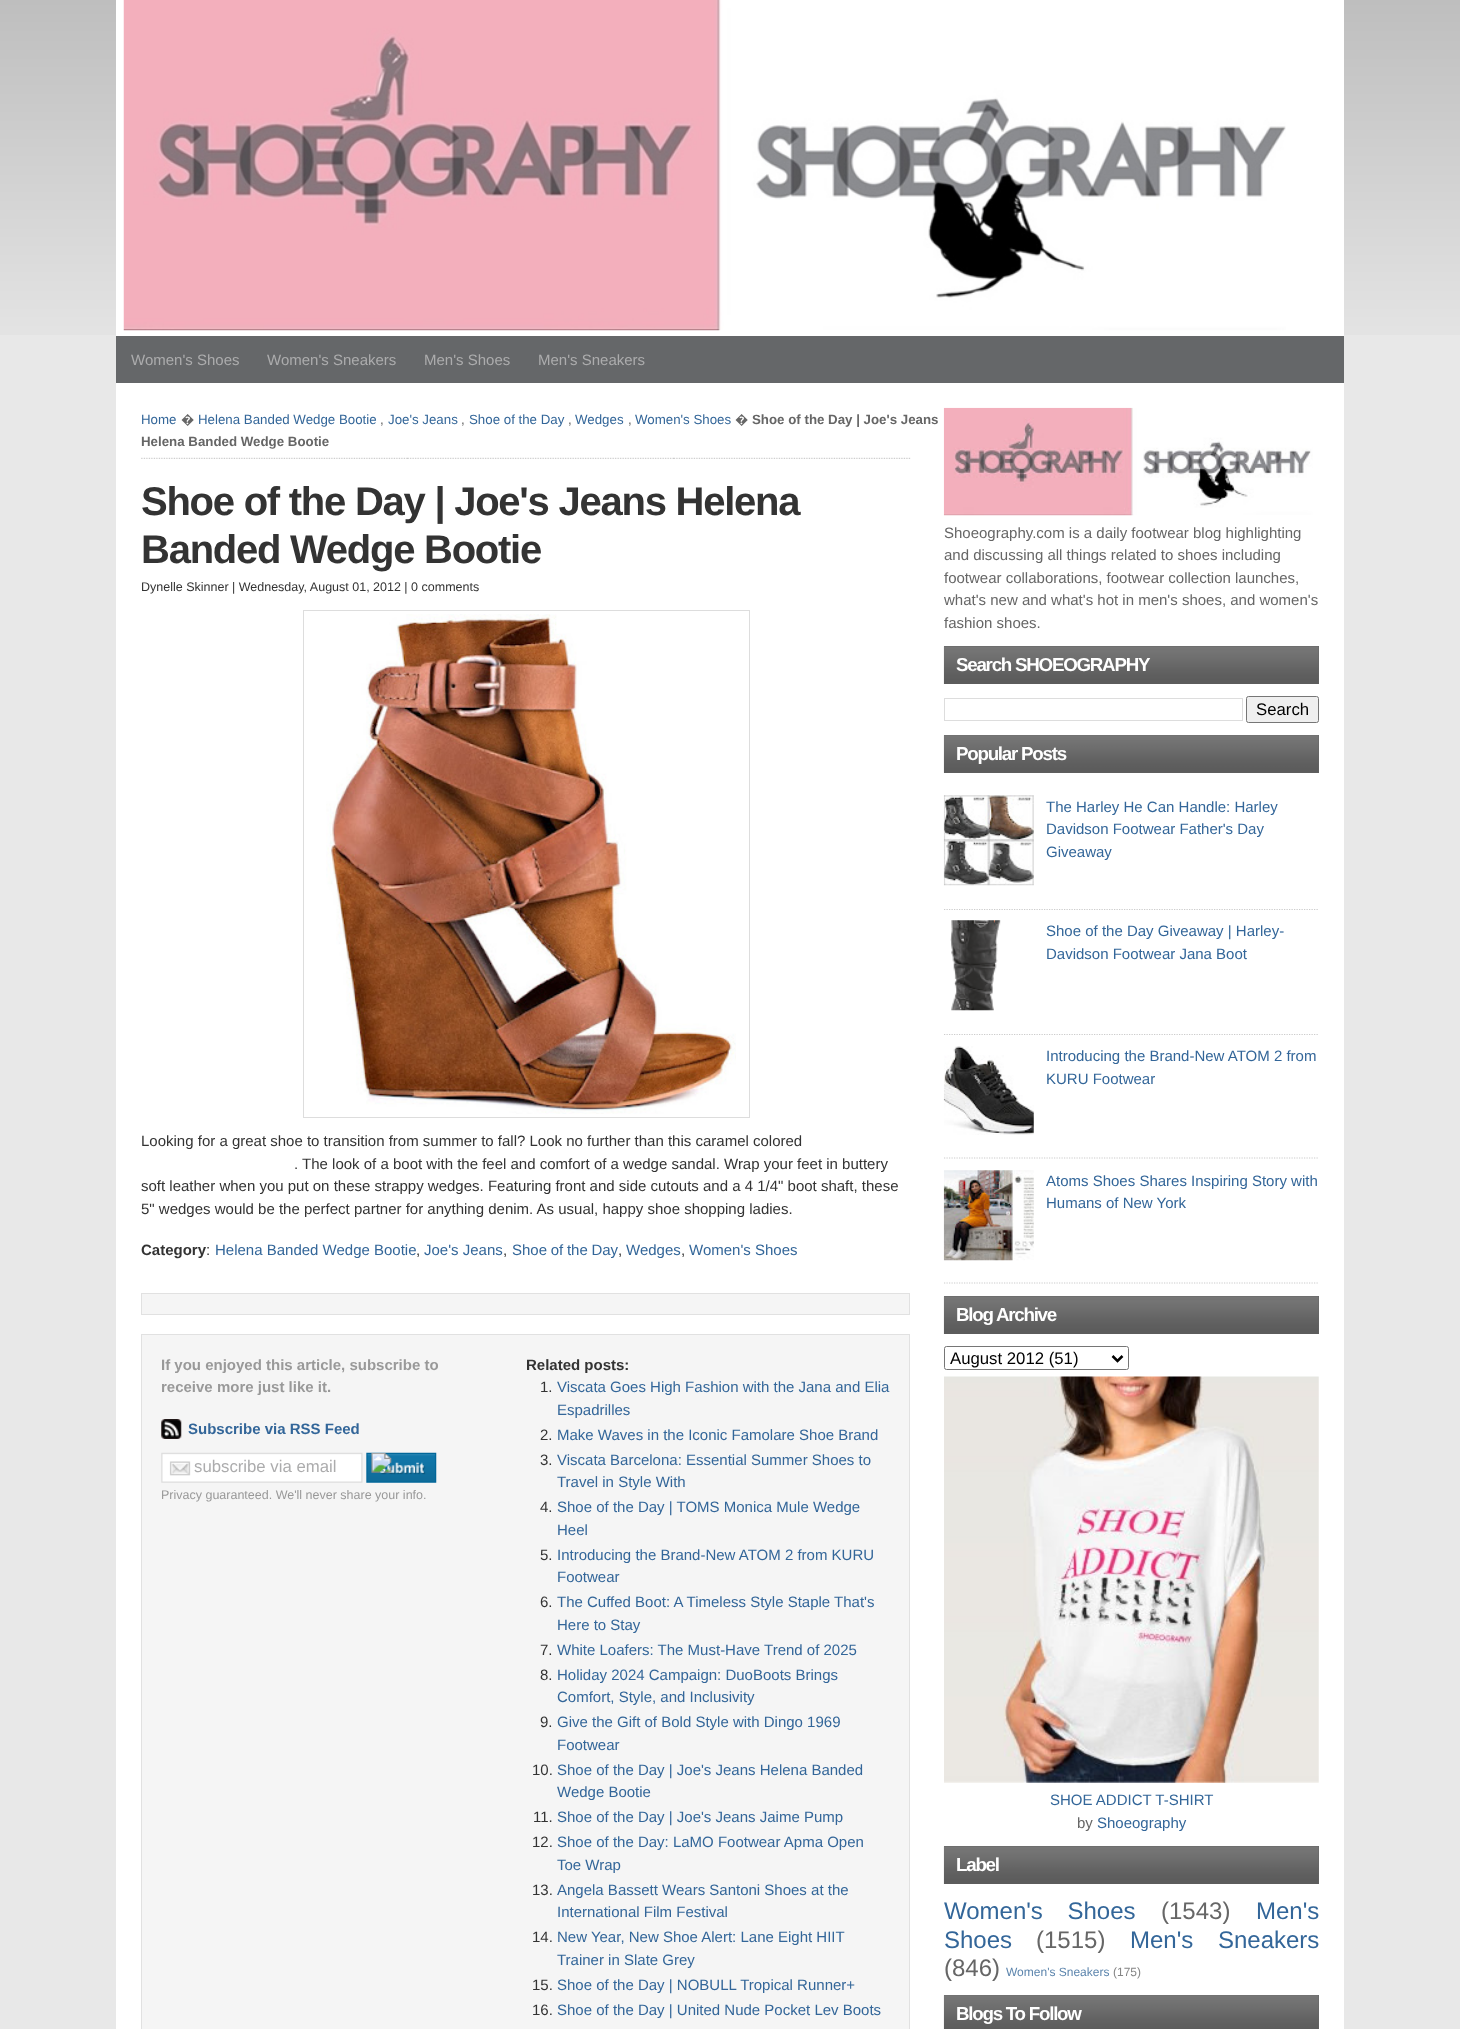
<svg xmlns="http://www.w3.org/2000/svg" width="1460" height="2029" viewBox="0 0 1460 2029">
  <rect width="100%" height="100%" fill="rgb(232,232,232)"/>
  <image x="0" y="0" width="1460" height="335" href="pic1.png"/>
  <rect x="116" y="0" width="1228" height="336" fill="rgb(255,255,255)"/>
  <image x="123" y="0" width="1163" height="331" href="pic2.png"/>
  <rect x="116" y="336" width="1228" height="47" fill="rgb(101,103,105)"/>
  <g font-family="Liberation Sans" font-size="15" fill="rgb(172,172,173)">
    <text x="131" y="365">Women's Shoes</text>
    <text x="267" y="365">Women's Sneakers</text>
    <text x="424" y="365">Men's Shoes</text>
    <text x="538" y="365">Men's Sneakers</text>
  </g>
  <rect x="116" y="383" width="1228" height="1646" fill="rgb(255,255,255)"/>
  <image x="141" y="457" width="770" height="2" href="pic3.png"/>
  <text x="141" y="424" font-family="Liberation Sans" font-size="13.3" fill="rgb(51,102,153)">Home</text>
  <text x="181" y="424" font-family="Noto Sans" font-size="13.3" fill="rgb(102,102,102)">�</text>
  <text x="198" y="424" font-family="Liberation Sans" font-size="13.3" fill="rgb(51,102,153)">Helena Banded Wedge Bootie</text>
  <text x="380" y="424" font-family="Liberation Sans" font-size="13.3" fill="rgb(102,102,102)">,</text>
  <text x="388" y="424" font-family="Liberation Sans" font-size="13.3" fill="rgb(51,102,153)">Joe's Jeans</text>
  <text x="461" y="424" font-family="Liberation Sans" font-size="13.3" fill="rgb(102,102,102)">,</text>
  <text x="469" y="424" font-family="Liberation Sans" font-size="13.3" fill="rgb(51,102,153)">Shoe of the Day</text>
  <text x="568" y="424" font-family="Liberation Sans" font-size="13.3" fill="rgb(102,102,102)">,</text>
  <text x="575" y="424" font-family="Liberation Sans" font-size="13.3" fill="rgb(51,102,153)">Wedges</text>
  <text x="628" y="424" font-family="Liberation Sans" font-size="13.3" fill="rgb(102,102,102)">,</text>
  <text x="635" y="424" font-family="Liberation Sans" font-size="13.3" fill="rgb(51,102,153)">Women's Shoes</text>
  <text x="735" y="424" font-family="Noto Sans" font-size="13.3" fill="rgb(102,102,102)">�</text>
  <g font-family="Liberation Sans" font-size="13.3" font-weight="bold" fill="rgb(102,102,102)">
    <text x="752" y="424">Shoe of the Day | Joe's Jeans</text>
    <text x="141" y="446">Helena Banded Wedge Bootie</text>
  </g>
  <g font-family="Liberation Sans" font-size="40" font-weight="bold" letter-spacing="-1.25" fill="rgb(51,51,51)">
    <text>
      <tspan x="141" y="515">Shoe of the Day | Joe's Jeans Helena</tspan>
      <tspan x="141" y="563">Banded Wedge Bootie</tspan>
    </text>
  </g>
  <text x="141" y="591" font-family="Liberation Sans" font-size="12.5" fill="rgb(51,51,51)">Dynelle Skinner | Wednesday, August 01, 2012 | 0 comments</text>
  <rect x="303.5" y="610.5" width="446" height="507" fill="none" stroke="rgb(221,221,221)"/>
  <image x="326" y="614" width="410" height="500" href="pic4.png"/>
  <g font-family="Liberation Sans" font-size="15" fill="rgb(51,51,51)">
    <text x="141" y="1146">Looking for a great shoe to transition from summer to fall? Look no further than this caramel colored</text>
    <text x="294" y="1169">. The look of a boot with the feel and comfort of a wedge sandal. Wrap your feet in buttery</text>
    <text>
      <tspan x="141" y="1191">soft leather when you put on these strappy wedges. Featuring front and side cutouts and a 4 1/4" boot shaft, these</tspan>
      <tspan x="141" y="1214">5" wedges would be the perfect partner for anything denim. As usual, happy shoe shopping ladies.</tspan>
    </text>
  </g>
  <text x="141" y="1255" font-family="Liberation Sans" font-size="15" font-weight="bold" fill="rgb(51,51,51)">Category</text>
  <text x="206" y="1255" font-family="Liberation Sans" font-size="15" fill="rgb(51,51,51)">:</text>
  <text x="215" y="1255" font-family="Liberation Sans" font-size="15" fill="rgb(51,102,153)">Helena Banded Wedge Bootie</text>
  <text x="416" y="1255" font-family="Liberation Sans" font-size="15" fill="rgb(51,51,51)">,</text>
  <text x="424" y="1255" font-family="Liberation Sans" font-size="15" fill="rgb(51,102,153)">Joe's Jeans</text>
  <text x="503" y="1255" font-family="Liberation Sans" font-size="15" fill="rgb(51,51,51)">,</text>
  <text x="512" y="1255" word-spacing="-0.5" font-family="Liberation Sans" font-size="15" fill="rgb(51,102,153)">Shoe of the Day</text>
  <text x="618" y="1255" font-family="Liberation Sans" font-size="15" fill="rgb(51,51,51)">,</text>
  <text x="626" y="1255" font-family="Liberation Sans" font-size="15" fill="rgb(51,102,153)">Wedges</text>
  <text x="681" y="1255" font-family="Liberation Sans" font-size="15" fill="rgb(51,51,51)">,</text>
  <text x="689" y="1255" font-family="Liberation Sans" font-size="15" fill="rgb(51,102,153)">Women's Shoes</text>
  <rect x="141.5" y="1293.5" width="768" height="21" fill="rgb(245,245,245)" stroke="rgb(225,225,225)"/>
  <rect x="141.5" y="1334.5" width="768" height="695" fill="rgb(245,245,245)" stroke="rgb(225,225,225)"/>
  <g font-family="Liberation Sans" font-size="15" font-weight="bold" fill="rgb(153,153,153)">
    <text>
      <tspan x="161" y="1370">If you enjoyed this article, subscribe to</tspan>
      <tspan x="161" y="1392">receive more just like it.</tspan>
    </text>
  </g>
  <image x="161" y="1419" width="21" height="20" href="pic5.png"/>
  <text x="188" y="1434" font-family="Liberation Sans" font-size="15" font-weight="bold" fill="rgb(51,102,153)">Subscribe via RSS Feed</text>
  <image x="161" y="1452" width="276" height="31" href="pic6.png"/>
  <text x="194" y="1472" font-family="Liberation Sans" font-size="16.75" fill="rgb(172,172,173)">subscribe via email</text>
  <image x="371" y="1453" width="21" height="20" href="pic7.png"/>
  <text x="161" y="1499" font-family="Liberation Sans" font-size="12.5" fill="rgb(153,153,153)">Privacy guaranteed. We'll never share your info.</text>
  <text x="526" y="1370" font-family="Liberation Sans" font-size="15" font-weight="bold" fill="rgb(51,51,51)">Related posts:</text>
  <text x="540" y="1392" font-family="Liberation Sans" font-size="15" fill="rgb(51,51,51)">1.</text>
  <g font-family="Liberation Sans" font-size="15" fill="rgb(51,102,153)">
    <text>
      <tspan x="557" y="1392">Viscata Goes High Fashion with the Jana and Elia</tspan>
      <tspan x="557" y="1415">Espadrilles</tspan>
    </text>
  </g>
  <text x="540" y="1440" font-family="Liberation Sans" font-size="15" fill="rgb(51,51,51)">2.</text>
  <text x="557" y="1440" font-family="Liberation Sans" font-size="15" fill="rgb(51,102,153)">Make Waves in the Iconic Famolare Shoe Brand</text>
  <text x="540" y="1465" font-family="Liberation Sans" font-size="15" fill="rgb(51,51,51)">3.</text>
  <g font-family="Liberation Sans" font-size="15" fill="rgb(51,102,153)">
    <text>
      <tspan x="557" y="1465">Viscata Barcelona: Essential Summer Shoes to</tspan>
      <tspan x="557" y="1487">Travel in Style With</tspan>
    </text>
  </g>
  <text x="540" y="1512" font-family="Liberation Sans" font-size="15" fill="rgb(51,51,51)">4.</text>
  <g font-family="Liberation Sans" font-size="15" fill="rgb(51,102,153)">
    <text>
      <tspan x="557" y="1512">Shoe of the Day | TOMS Monica Mule Wedge</tspan>
      <tspan x="557" y="1535">Heel</tspan>
    </text>
  </g>
  <text x="540" y="1560" font-family="Liberation Sans" font-size="15" fill="rgb(51,51,51)">5.</text>
  <g font-family="Liberation Sans" font-size="15" fill="rgb(51,102,153)">
    <text>
      <tspan x="557" y="1560">Introducing the Brand-New ATOM 2 from KURU</tspan>
      <tspan x="557" y="1582">Footwear</tspan>
    </text>
  </g>
  <text x="540" y="1607" font-family="Liberation Sans" font-size="15" fill="rgb(51,51,51)">6.</text>
  <g font-family="Liberation Sans" font-size="15" fill="rgb(51,102,153)">
    <text>
      <tspan x="557" y="1607">The Cuffed Boot: A Timeless Style Staple That's</tspan>
      <tspan x="557" y="1630">Here to Stay</tspan>
    </text>
  </g>
  <text x="540" y="1655" font-family="Liberation Sans" font-size="15" fill="rgb(51,51,51)">7.</text>
  <text x="557" y="1655" font-family="Liberation Sans" font-size="15" fill="rgb(51,102,153)">White Loafers: The Must-Have Trend of 2025</text>
  <text x="540" y="1680" font-family="Liberation Sans" font-size="15" fill="rgb(51,51,51)">8.</text>
  <g font-family="Liberation Sans" font-size="15" fill="rgb(51,102,153)">
    <text>
      <tspan x="557" y="1680">Holiday 2024 Campaign: DuoBoots Brings</tspan>
      <tspan x="557" y="1702">Comfort, Style, and Inclusivity</tspan>
    </text>
  </g>
  <text x="540" y="1727" font-family="Liberation Sans" font-size="15" fill="rgb(51,51,51)">9.</text>
  <g font-family="Liberation Sans" font-size="15" fill="rgb(51,102,153)">
    <text>
      <tspan x="557" y="1727">Give the Gift of Bold Style with Dingo 1969</tspan>
      <tspan x="557" y="1750">Footwear</tspan>
    </text>
  </g>
  <text x="532" y="1775" font-family="Liberation Sans" font-size="15" fill="rgb(51,51,51)">10.</text>
  <g font-family="Liberation Sans" font-size="15" fill="rgb(51,102,153)">
    <text>
      <tspan x="557" y="1775">Shoe of the Day | Joe's Jeans Helena Banded</tspan>
      <tspan x="557" y="1797">Wedge Bootie</tspan>
    </text>
  </g>
  <text x="533" y="1822" font-family="Liberation Sans" font-size="15" fill="rgb(51,51,51)">11.</text>
  <text x="557" y="1822" font-family="Liberation Sans" font-size="15" fill="rgb(51,102,153)">Shoe of the Day | Joe's Jeans Jaime Pump</text>
  <text x="532" y="1847" font-family="Liberation Sans" font-size="15" fill="rgb(51,51,51)">12.</text>
  <g font-family="Liberation Sans" font-size="15" fill="rgb(51,102,153)">
    <text>
      <tspan x="557" y="1847">Shoe of the Day: LaMO Footwear Apma Open</tspan>
      <tspan x="557" y="1870">Toe Wrap</tspan>
    </text>
  </g>
  <text x="532" y="1895" font-family="Liberation Sans" font-size="15" fill="rgb(51,51,51)">13.</text>
  <g font-family="Liberation Sans" font-size="15" fill="rgb(51,102,153)">
    <text>
      <tspan x="557" y="1895">Angela Bassett Wears Santoni Shoes at the</tspan>
      <tspan x="557" y="1917">International Film Festival</tspan>
    </text>
  </g>
  <text x="532" y="1942" font-family="Liberation Sans" font-size="15" fill="rgb(51,51,51)">14.</text>
  <g font-family="Liberation Sans" font-size="15" fill="rgb(51,102,153)">
    <text>
      <tspan x="557" y="1942">New Year, New Shoe Alert: Lane Eight HIIT</tspan>
      <tspan x="557" y="1965">Trainer in Slate Grey</tspan>
    </text>
  </g>
  <text x="532" y="1990" font-family="Liberation Sans" font-size="15" fill="rgb(51,51,51)">15.</text>
  <text x="557" y="1990" font-family="Liberation Sans" font-size="15" fill="rgb(51,102,153)">Shoe of the Day | NOBULL Tropical Runner+</text>
  <text x="532" y="2015" font-family="Liberation Sans" font-size="15" fill="rgb(51,51,51)">16.</text>
  <text x="557" y="2015" font-family="Liberation Sans" font-size="15" fill="rgb(51,102,153)">Shoe of the Day | United Nude Pocket Lev Boots</text>
  <image x="943" y="407" width="370" height="109" href="pic8.png"/>
  <g font-family="Liberation Sans" font-size="15" fill="rgb(102,102,102)">
    <text>
      <tspan x="944" y="538">Shoeography.com is a daily footwear blog highlighting</tspan>
      <tspan x="944" y="560">and discussing all things related to shoes including</tspan>
      <tspan x="944" y="583">footwear collaborations, footwear collection launches,</tspan>
      <tspan x="944" y="605">what's new and what's hot in men's shoes, and women's</tspan>
      <tspan x="944" y="628">fashion shoes.</tspan>
    </text>
  </g>
  <rect x="944" y="646" width="375" height="38" fill="rgb(102,102,102)"/>
  <image x="943" y="646" width="376" height="38" href="pic9.png"/>
  <text x="956" y="671" font-family="Liberation Sans" font-size="18.75" font-weight="bold" letter-spacing="-1.25" fill="rgb(255,255,255)">Search SHOEOGRAPHY</text>
  <rect x="944.5" y="698.5" width="298" height="22" fill="none" stroke="rgb(221,221,221)"/>
  <rect x="1246.5" y="696.5" width="72" height="26" rx="2" fill="rgb(239,239,239)" stroke="rgb(118,118,118)"/>
  <text x="1256" y="715" font-family="Liberation Sans" font-size="16.75" fill="rgb(0,0,0)">Search</text>
  <rect x="944" y="735" width="375" height="38" fill="rgb(102,102,102)"/>
  <image x="943" y="735" width="376" height="38" href="pic10.png"/>
  <text x="956" y="760" font-family="Liberation Sans" font-size="18.75" font-weight="bold" letter-spacing="-1.25" fill="rgb(255,255,255)">Popular Posts</text>
  <path d="M944 909.5H1319" fill="none" stroke="rgb(204,204,204)" stroke-width="1.2" stroke-dasharray="1.25 1.25"/>
  <image x="943" y="795" width="91" height="91" href="pic11.png"/>
  <g font-family="Liberation Sans" font-size="15" fill="rgb(51,102,153)">
    <text>
      <tspan x="1046" y="812">The Harley He Can Handle: Harley</tspan>
      <tspan x="1046" y="834">Davidson Footwear Father's Day</tspan>
      <tspan x="1046" y="857">Giveaway</tspan>
    </text>
  </g>
  <path d="M944 1034.5H1319" fill="none" stroke="rgb(204,204,204)" stroke-width="1.2" stroke-dasharray="1.25 1.25"/>
  <image x="950" y="920" width="51" height="91" href="pic12.png"/>
  <g font-family="Liberation Sans" font-size="15" fill="rgb(51,102,153)">
    <text>
      <tspan x="1046" y="936">Shoe of the Day Giveaway | Harley-</tspan>
      <tspan x="1046" y="959">Davidson Footwear Jana Boot</tspan>
    </text>
  </g>
  <path d="M944 1158H1319" fill="none" stroke="rgb(204,204,204)" stroke-width="1.2" stroke-dasharray="1.25 1.25"/>
  <image x="943" y="1046" width="91" height="89" href="pic13.png"/>
  <g font-family="Liberation Sans" font-size="15" fill="rgb(51,102,153)">
    <text>
      <tspan x="1046" y="1061">Introducing the Brand-New ATOM 2 from</tspan>
      <tspan x="1046" y="1084">KURU Footwear</tspan>
    </text>
  </g>
  <path d="M944 1283H1319" fill="none" stroke="rgb(204,204,204)" stroke-width="1.2" stroke-dasharray="1.25 1.25"/>
  <image x="943" y="1170" width="91" height="91" href="pic14.png"/>
  <g font-family="Liberation Sans" font-size="15" fill="rgb(51,102,153)">
    <text>
      <tspan x="1046" y="1186">Atoms Shoes Shares Inspiring Story with</tspan>
      <tspan x="1046" y="1208">Humans of New York</tspan>
    </text>
  </g>
  <rect x="944" y="1296" width="375" height="38" fill="rgb(102,102,102)"/>
  <image x="943" y="1296" width="376" height="38" href="pic15.png"/>
  <text x="956" y="1321" font-family="Liberation Sans" font-size="18.75" font-weight="bold" letter-spacing="-1.25" fill="rgb(255,255,255)">Blog Archive</text>
  <rect x="944.5" y="1346.5" width="184" height="23" rx="2" fill="none" stroke="rgb(118,118,118)"/>
  <path d="M1112.5 1356L1117.5 1361L1122.5 1356" fill="none" stroke="rgb(0,0,0)" stroke-width="2.5"/>
  <text x="950" y="1364" font-family="Liberation Sans" font-size="16.75" fill="rgb(0,0,0)">August 2012 (51)</text>
  <image x="944" y="1376" width="375" height="407" href="pic16.png"/>
  <text x="1050" y="1805" font-family="Liberation Sans" font-size="15" fill="rgb(51,102,153)">SHOE ADDICT T-SHIRT</text>
  <text x="1077" y="1828" font-family="Liberation Sans" font-size="15" fill="rgb(102,102,102)">by</text>
  <text x="1097" y="1828" font-family="Liberation Sans" font-size="15" fill="rgb(51,102,153)">Shoeography</text>
  <rect x="944" y="1846" width="375" height="38" fill="rgb(102,102,102)"/>
  <image x="943" y="1846" width="376" height="38" href="pic17.png"/>
  <text x="956" y="1871" font-family="Liberation Sans" font-size="18.75" font-weight="bold" letter-spacing="-1.25" fill="rgb(255,255,255)">Label</text>
  <text x="944" y="1919" word-spacing="18" font-family="Liberation Sans" font-size="24" fill="rgb(51,102,153)">Women's Shoes</text>
  <text x="1161" y="1919" font-family="Liberation Sans" font-size="24" fill="rgb(102,102,102)">(1543)</text>
  <g font-family="Liberation Sans" font-size="24" fill="rgb(51,102,153)">
    <text x="1256" y="1919">Men's</text>
    <text x="944" y="1948">Shoes</text>
  </g>
  <text x="1036" y="1948" font-family="Liberation Sans" font-size="24" fill="rgb(102,102,102)">(1515)</text>
  <text x="1130" y="1948" word-spacing="18" font-family="Liberation Sans" font-size="24" fill="rgb(51,102,153)">Men's Sneakers</text>
  <text x="944" y="1976" font-family="Liberation Sans" font-size="24" fill="rgb(102,102,102)">(846)</text>
  <text x="1006" y="1976" font-family="Liberation Sans" font-size="12" fill="rgb(92,133,173)">Women's Sneakers</text>
  <text x="1113" y="1976" font-family="Liberation Sans" font-size="12" fill="rgb(133,133,133)">(175)</text>
  <rect x="944" y="1995" width="375" height="34" fill="rgb(102,102,102)"/>
  <image x="943" y="1995" width="376" height="34" href="pic18.png"/>
  <text x="956" y="2020" font-family="Liberation Sans" font-size="18.75" font-weight="bold" letter-spacing="-1.25" fill="rgb(255,255,255)">Blogs To Follow</text>
</svg>
